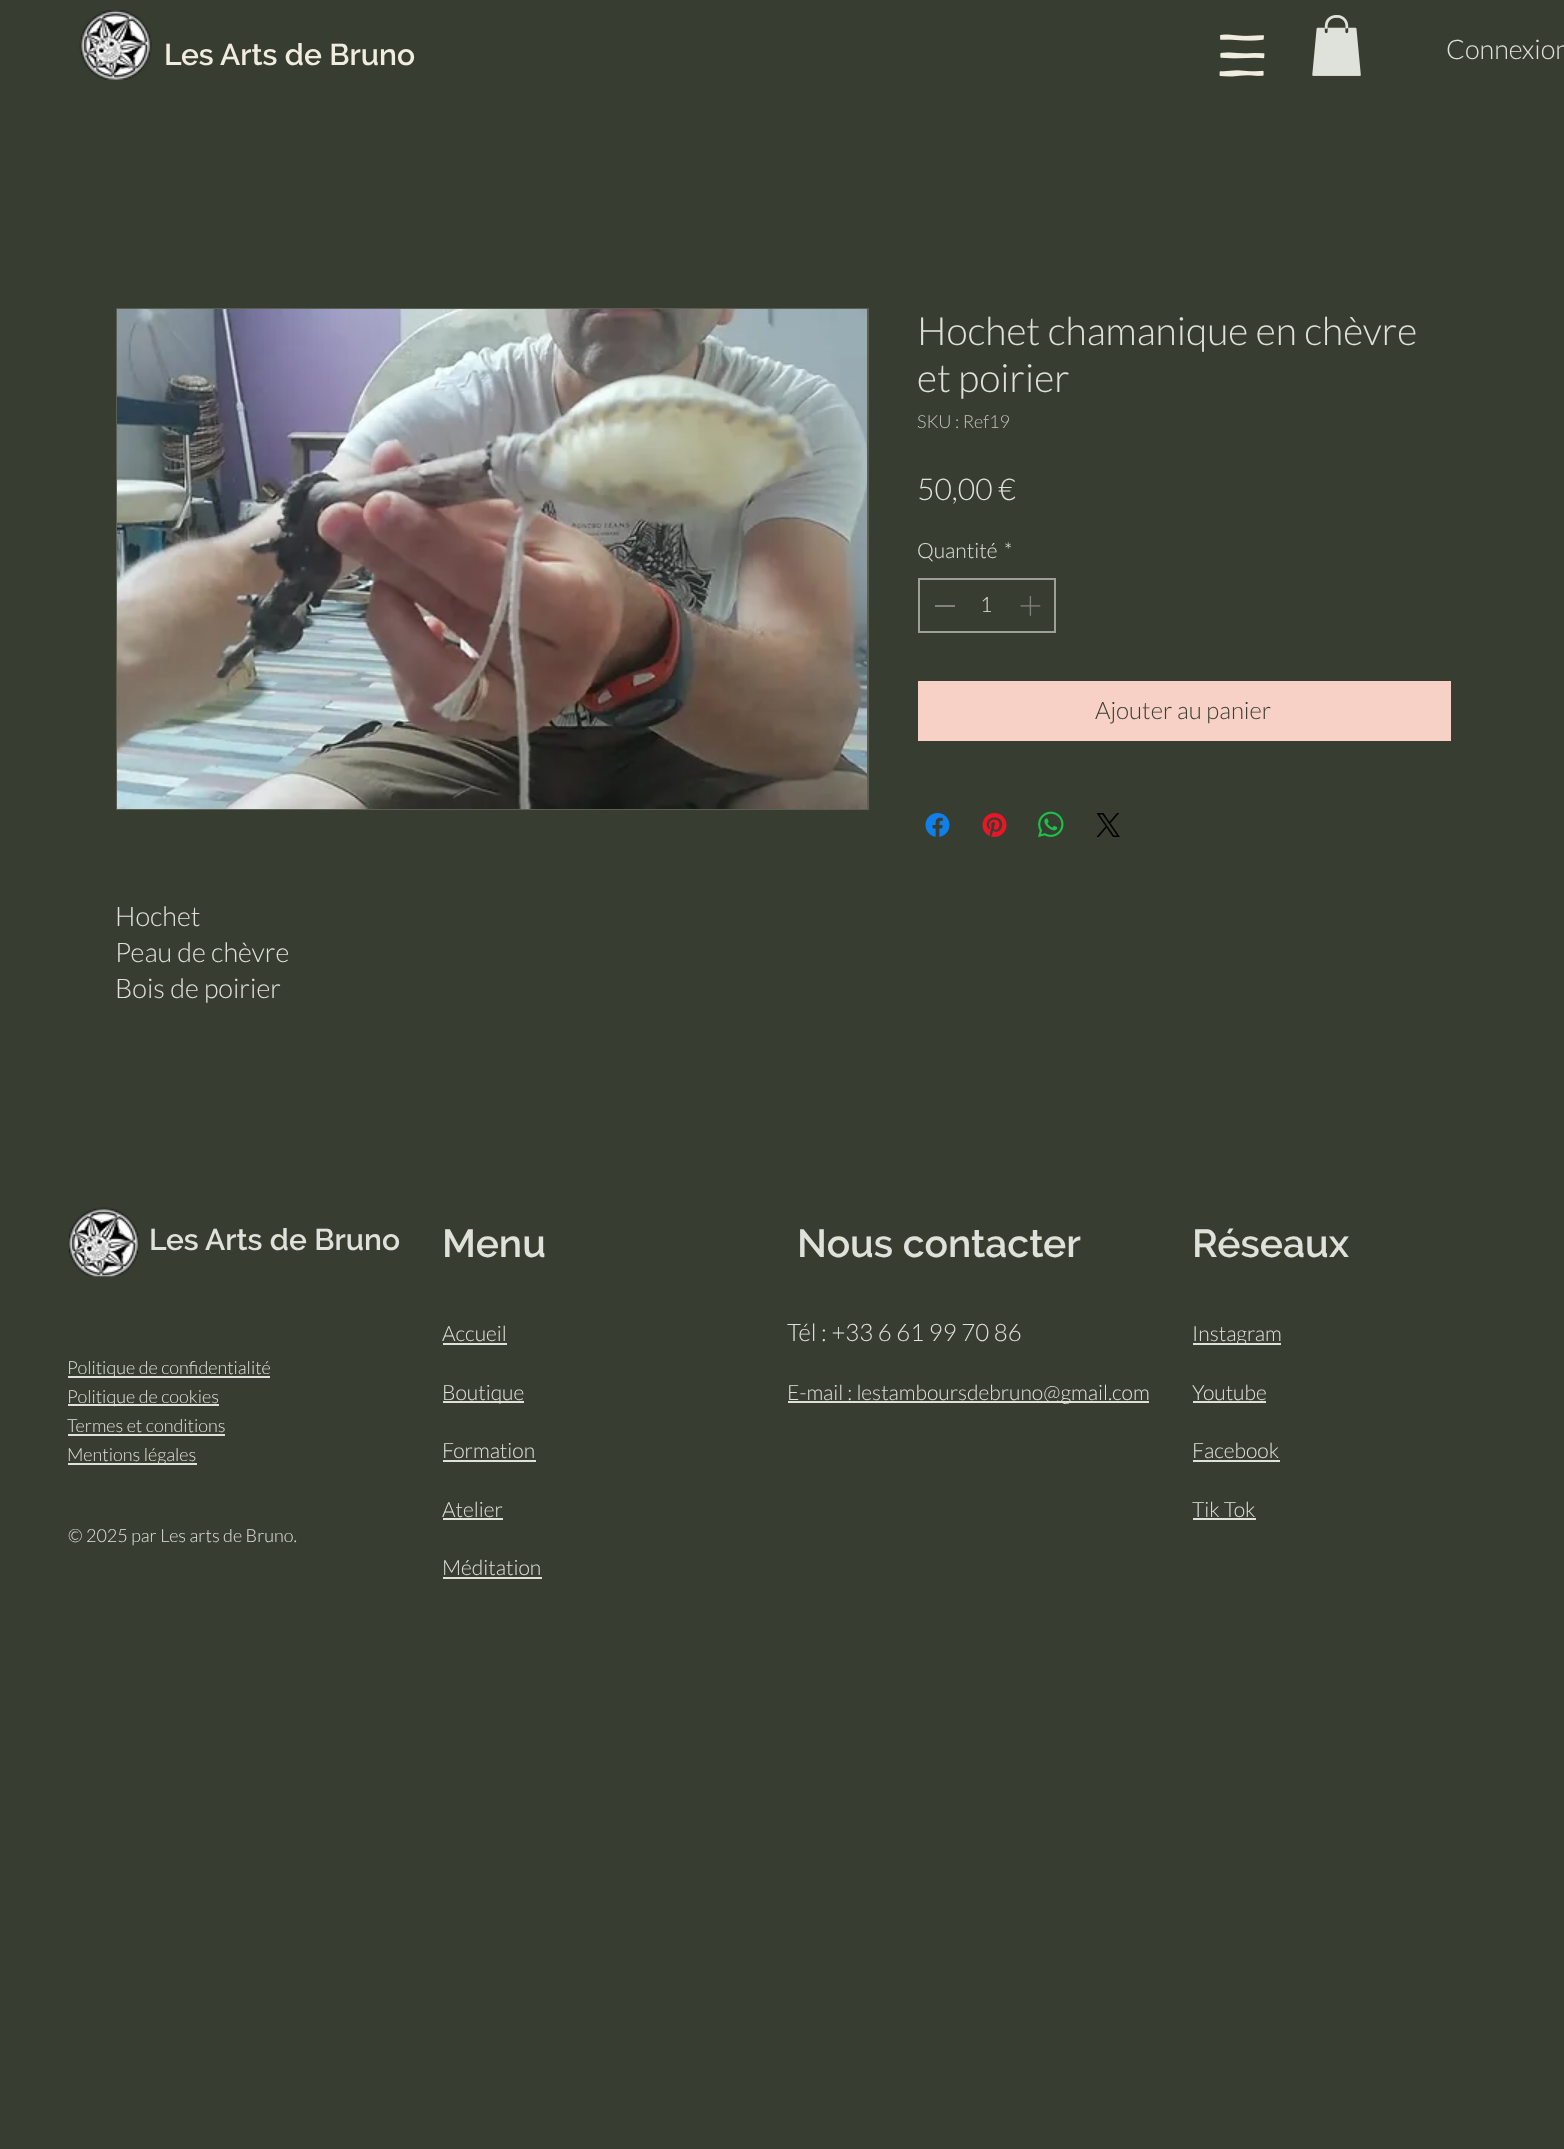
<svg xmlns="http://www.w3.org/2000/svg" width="1564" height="2149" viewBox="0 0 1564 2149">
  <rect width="100%" height="100%" fill="rgb(56,61,49)"/>
  <image x="79" y="10" width="73" height="70" href="pic1.png"/>
  <text x="164" y="65" font-family="Raleway" font-size="30" font-weight="600" fill="rgb(240,236,223)">Les Arts de Bruno</text>
  <image x="1219" y="34" width="46" height="43" href="pic2.png"/>
  <image x="1312" y="15" width="49" height="61" href="pic3.png"/>
  <text x="1446" y="59" font-family="Lato" font-size="27" font-weight="300" fill="rgb(222,226,218)">Connexion</text>
  <g font-family="Lato" font-size="39" font-weight="300" fill="rgb(222,226,218)">
    <text>
      <tspan x="917" y="345">Hochet chamanique en chèvre</tspan>
      <tspan x="917" y="392">et poirier</tspan>
    </text>
  </g>
  <text x="917" y="428" font-family="Lato" font-size="18" font-weight="300" fill="rgb(192,196,188)">SKU : Ref19</text>
  <text x="917" y="500" font-family="Lato" font-size="30" font-weight="300" fill="rgb(222,226,218)">50,00 €</text>
  <g font-family="Lato" font-size="21" font-weight="300" fill="rgb(222,226,218)">
    <text x="917" y="558">Quantité</text>
    <text x="1004" y="558">*</text>
  </g>
  <rect x="919" y="579" width="136" height="53" fill="none" stroke="rgb(156,160,150)" stroke-width="2"/>
  <rect x="935" y="605" width="20" height="2" fill="rgb(128,130,124)"/>
  <text x="980" y="612" font-family="Lato" font-size="21" font-weight="300" fill="rgb(222,226,218)">1</text>
  <image x="1020" y="596" width="21" height="20" href="pic4.png"/>
  <rect x="918" y="681" width="533" height="60" fill="rgb(247,209,198)"/>
  <text x="1095" y="719" font-family="Lato" font-size="24" font-weight="300" fill="rgb(56,61,49)">Ajouter au panier</text>
  <image x="925" y="813" width="25" height="24" href="pic5.png"/>
  <image x="982" y="813" width="25" height="24" href="pic6.png"/>
  <image x="1038" y="811" width="26" height="27" href="pic7.png"/>
  <image x="1096" y="813" width="24" height="24" href="pic8.png"/>
  <rect x="117" y="309" width="751" height="500" fill="none" stroke="rgb(90,94,83)" stroke-width="2"/>
  <image x="117" y="309" width="750" height="500" href="pic9.png"/>
  <g font-family="Lato" font-size="27" font-weight="300" fill="rgb(222,226,218)">
    <text>
      <tspan x="115" y="926">Hochet</tspan>
      <tspan x="115" y="962">Peau de chèvre</tspan>
      <tspan x="115" y="998">Bois de poirier</tspan>
    </text>
  </g>
  <image x="68" y="1207" width="72" height="70" href="pic10.png"/>
  <text x="149" y="1250" font-family="Raleway" font-size="30" font-weight="600" fill="rgb(222,226,218)">Les Arts de Bruno</text>
  <rect x="68" y="1376" width="202" height="2" fill="rgb(222,226,218)"/>
  <text x="67" y="1374" font-family="Lato" font-size="18" font-weight="300" fill="rgb(222,226,218)">Politique de confidentialité</text>
  <rect x="68" y="1404" width="151" height="2" fill="rgb(222,226,218)"/>
  <g font-family="Lato" font-size="18" font-weight="300" fill="rgb(222,226,218)">
    <text>
      <tspan x="67" y="1403">Politique de cookies</tspan>
      <tspan x="67" y="1432">Termes et conditions</tspan>
    </text>
  </g>
  <rect x="68" y="1434" width="157" height="2" fill="rgb(222,226,218)"/>
  <rect x="68" y="1463" width="129" height="2" fill="rgb(222,226,218)"/>
  <g font-family="Lato" font-size="18" font-weight="300" fill="rgb(222,226,218)">
    <text x="67" y="1461">Mentions légales</text>
    <text x="68" y="1542">© 2025 par Les arts de Bruno.</text>
  </g>
  <text x="442" y="1257" font-family="Raleway" font-size="39" font-weight="600" fill="rgb(222,226,218)">Menu</text>
  <text x="442" y="1341" font-family="Lato" font-size="21" font-weight="300" fill="rgb(222,226,218)">Accueil</text>
  <rect x="443" y="1343" width="64" height="2" fill="rgb(222,226,218)"/>
  <rect x="443" y="1401" width="81" height="2" fill="rgb(222,226,218)"/>
  <g font-family="Lato" font-size="21" font-weight="300" fill="rgb(222,226,218)">
    <text x="442" y="1400">Boutique</text>
    <text x="442" y="1458">Formation</text>
  </g>
  <rect x="443" y="1460" width="93" height="2" fill="rgb(222,226,218)"/>
  <text x="442" y="1517" font-family="Lato" font-size="21" font-weight="300" fill="rgb(222,226,218)">Atelier</text>
  <rect x="443" y="1518" width="60" height="2" fill="rgb(222,226,218)"/>
  <text x="442" y="1575" font-family="Lato" font-size="21" font-weight="300" fill="rgb(222,226,218)">Méditation</text>
  <rect x="443" y="1577" width="99" height="2" fill="rgb(222,226,218)"/>
  <text x="797" y="1257" font-family="Raleway" font-size="39" font-weight="600" fill="rgb(222,226,218)">Nous contacter</text>
  <text x="787" y="1341" font-family="Lato" font-size="24" font-weight="300" fill="rgb(222,226,218)">Tél : +33 6 61 99 70 86</text>
  <rect x="788" y="1401" width="361" height="2" fill="rgb(222,226,218)"/>
  <text x="787" y="1400" font-family="Lato" font-size="21" font-weight="300" fill="rgb(222,226,218)">E-mail : lestamboursdebruno@gmail.com</text>
  <text x="1192" y="1257" font-family="Raleway" font-size="39" font-weight="600" fill="rgb(222,226,218)">Réseaux</text>
  <rect x="1193" y="1343" width="88" height="2" fill="rgb(222,226,218)"/>
  <g font-family="Lato" font-size="21" font-weight="300" fill="rgb(222,226,218)">
    <text x="1192" y="1341">Instagram</text>
    <text x="1192" y="1400">Youtube</text>
  </g>
  <rect x="1193" y="1401" width="73" height="2" fill="rgb(222,226,218)"/>
  <text x="1192" y="1458" font-family="Lato" font-size="21" font-weight="300" fill="rgb(222,226,218)">Facebook</text>
  <rect x="1193" y="1460" width="87" height="2" fill="rgb(222,226,218)"/>
  <text x="1192" y="1517" font-family="Lato" font-size="21" font-weight="300" fill="rgb(222,226,218)">Tik Tok</text>
  <rect x="1193" y="1518" width="63" height="2" fill="rgb(222,226,218)"/>
</svg>
